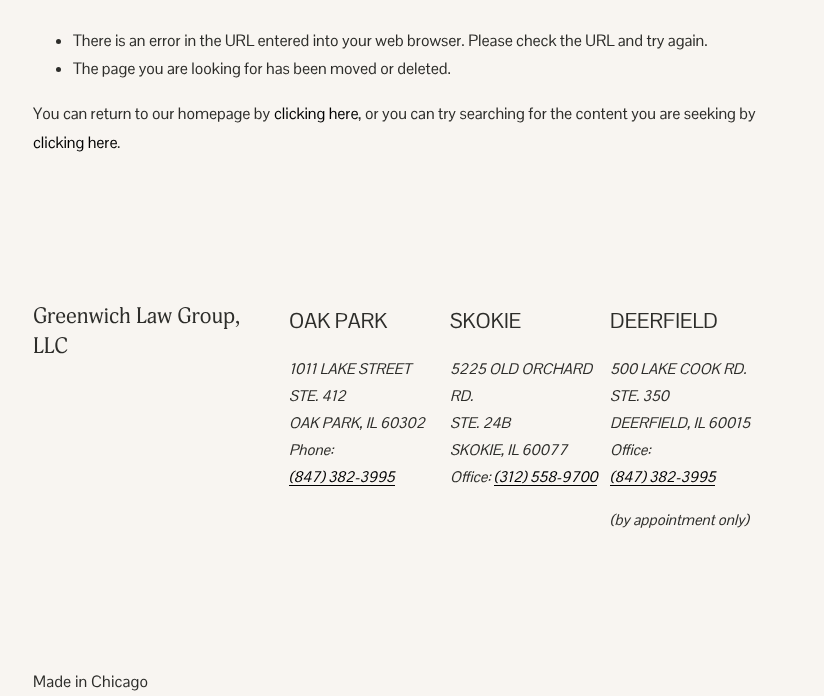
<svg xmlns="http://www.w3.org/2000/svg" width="824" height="696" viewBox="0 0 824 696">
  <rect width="100%" height="100%" fill="rgb(248,245,241)"/>
  <circle cx="58.5" cy="41.5" r="2.5" fill="rgb(45,45,42)"/>
  <text x="73" y="46" font-family="Pontano Sans" font-size="16" fill="rgb(45,45,42)">There is an error in the URL entered into your web browser. Please check the URL and try again.</text>
  <circle cx="58.5" cy="69.5" r="2.5" fill="rgb(45,45,42)"/>
  <g font-family="Pontano Sans" font-size="16" fill="rgb(45,45,42)">
    <text x="73" y="74">The page you are looking for has been moved or deleted.</text>
    <text x="33" y="119">You can return to our homepage by</text>
  </g>
  <text x="274" y="119" font-family="Pontano Sans" font-size="16" fill="rgb(0,0,0)">clicking here</text>
  <text x="358" y="119" font-family="Pontano Sans" font-size="16" fill="rgb(45,45,42)">, or you can try searching for the content you are seeking by</text>
  <text x="33" y="148" font-family="Pontano Sans" font-size="16" fill="rgb(0,0,0)">clicking here</text>
  <text x="117" y="148" font-family="Pontano Sans" font-size="16" fill="rgb(45,45,42)">.</text>
  <g font-family="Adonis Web" font-size="22" fill="rgb(45,45,42)">
    <text>
      <tspan x="33" y="323">Greenwich Law Group,</tspan>
      <tspan x="33" y="353">LLC</tspan>
    </text>
  </g>
  <text x="289" y="328" font-family="Pontano Sans" font-size="21" fill="rgb(45,45,42)">OAK PARK</text>
  <g font-family="Pontano Sans" font-size="15" font-style="italic" fill="rgb(45,45,42)">
    <text>
      <tspan x="289" y="374">1011 LAKE STREET</tspan>
      <tspan x="289" y="401">STE. 412</tspan>
      <tspan x="289" y="428">OAK PARK, IL 60302</tspan>
      <tspan x="289" y="455">Phone:</tspan>
    </text>
  </g>
  <text x="289" y="482" font-family="Pontano Sans" font-size="15" font-style="italic" fill="rgb(0,0,0)">(847) 382-3995</text>
  <rect x="289" y="485" width="106" height="1" fill="rgb(0,0,0)"/>
  <text x="450" y="328" font-family="Pontano Sans" font-size="21" fill="rgb(45,45,42)">SKOKIE</text>
  <g font-family="Pontano Sans" font-size="15" font-style="italic" fill="rgb(45,45,42)">
    <text>
      <tspan x="450" y="374">5225 OLD ORCHARD</tspan>
      <tspan x="450" y="401">RD.</tspan>
      <tspan x="450" y="428">STE. 24B</tspan>
      <tspan x="450" y="455">SKOKIE, IL 60077</tspan>
      <tspan x="450" y="482">Office:</tspan>
    </text>
  </g>
  <text x="494" y="482" font-family="Pontano Sans" font-size="15" font-style="italic" fill="rgb(0,0,0)">(312) 558-9700</text>
  <rect x="494" y="485" width="103" height="1" fill="rgb(0,0,0)"/>
  <text x="610" y="328" font-family="Pontano Sans" font-size="21" fill="rgb(45,45,42)">DEERFIELD</text>
  <g font-family="Pontano Sans" font-size="15" font-style="italic" fill="rgb(45,45,42)">
    <text>
      <tspan x="610" y="374">500 LAKE COOK RD.</tspan>
      <tspan x="610" y="401">STE. 350</tspan>
      <tspan x="610" y="428">DEERFIELD, IL 60015</tspan>
      <tspan x="610" y="455">Office:</tspan>
    </text>
  </g>
  <text x="610" y="482" font-family="Pontano Sans" font-size="15" font-style="italic" fill="rgb(0,0,0)">(847) 382-3995</text>
  <rect x="610" y="485" width="105" height="1" fill="rgb(0,0,0)"/>
  <text x="610" y="525" font-family="Pontano Sans" font-size="15" font-style="italic" fill="rgb(45,45,42)">(by appointment only)</text>
  <text x="33" y="687" font-family="Pontano Sans" font-size="16" letter-spacing="0.2" fill="rgb(45,45,42)">Made in Chicago</text>
</svg>
